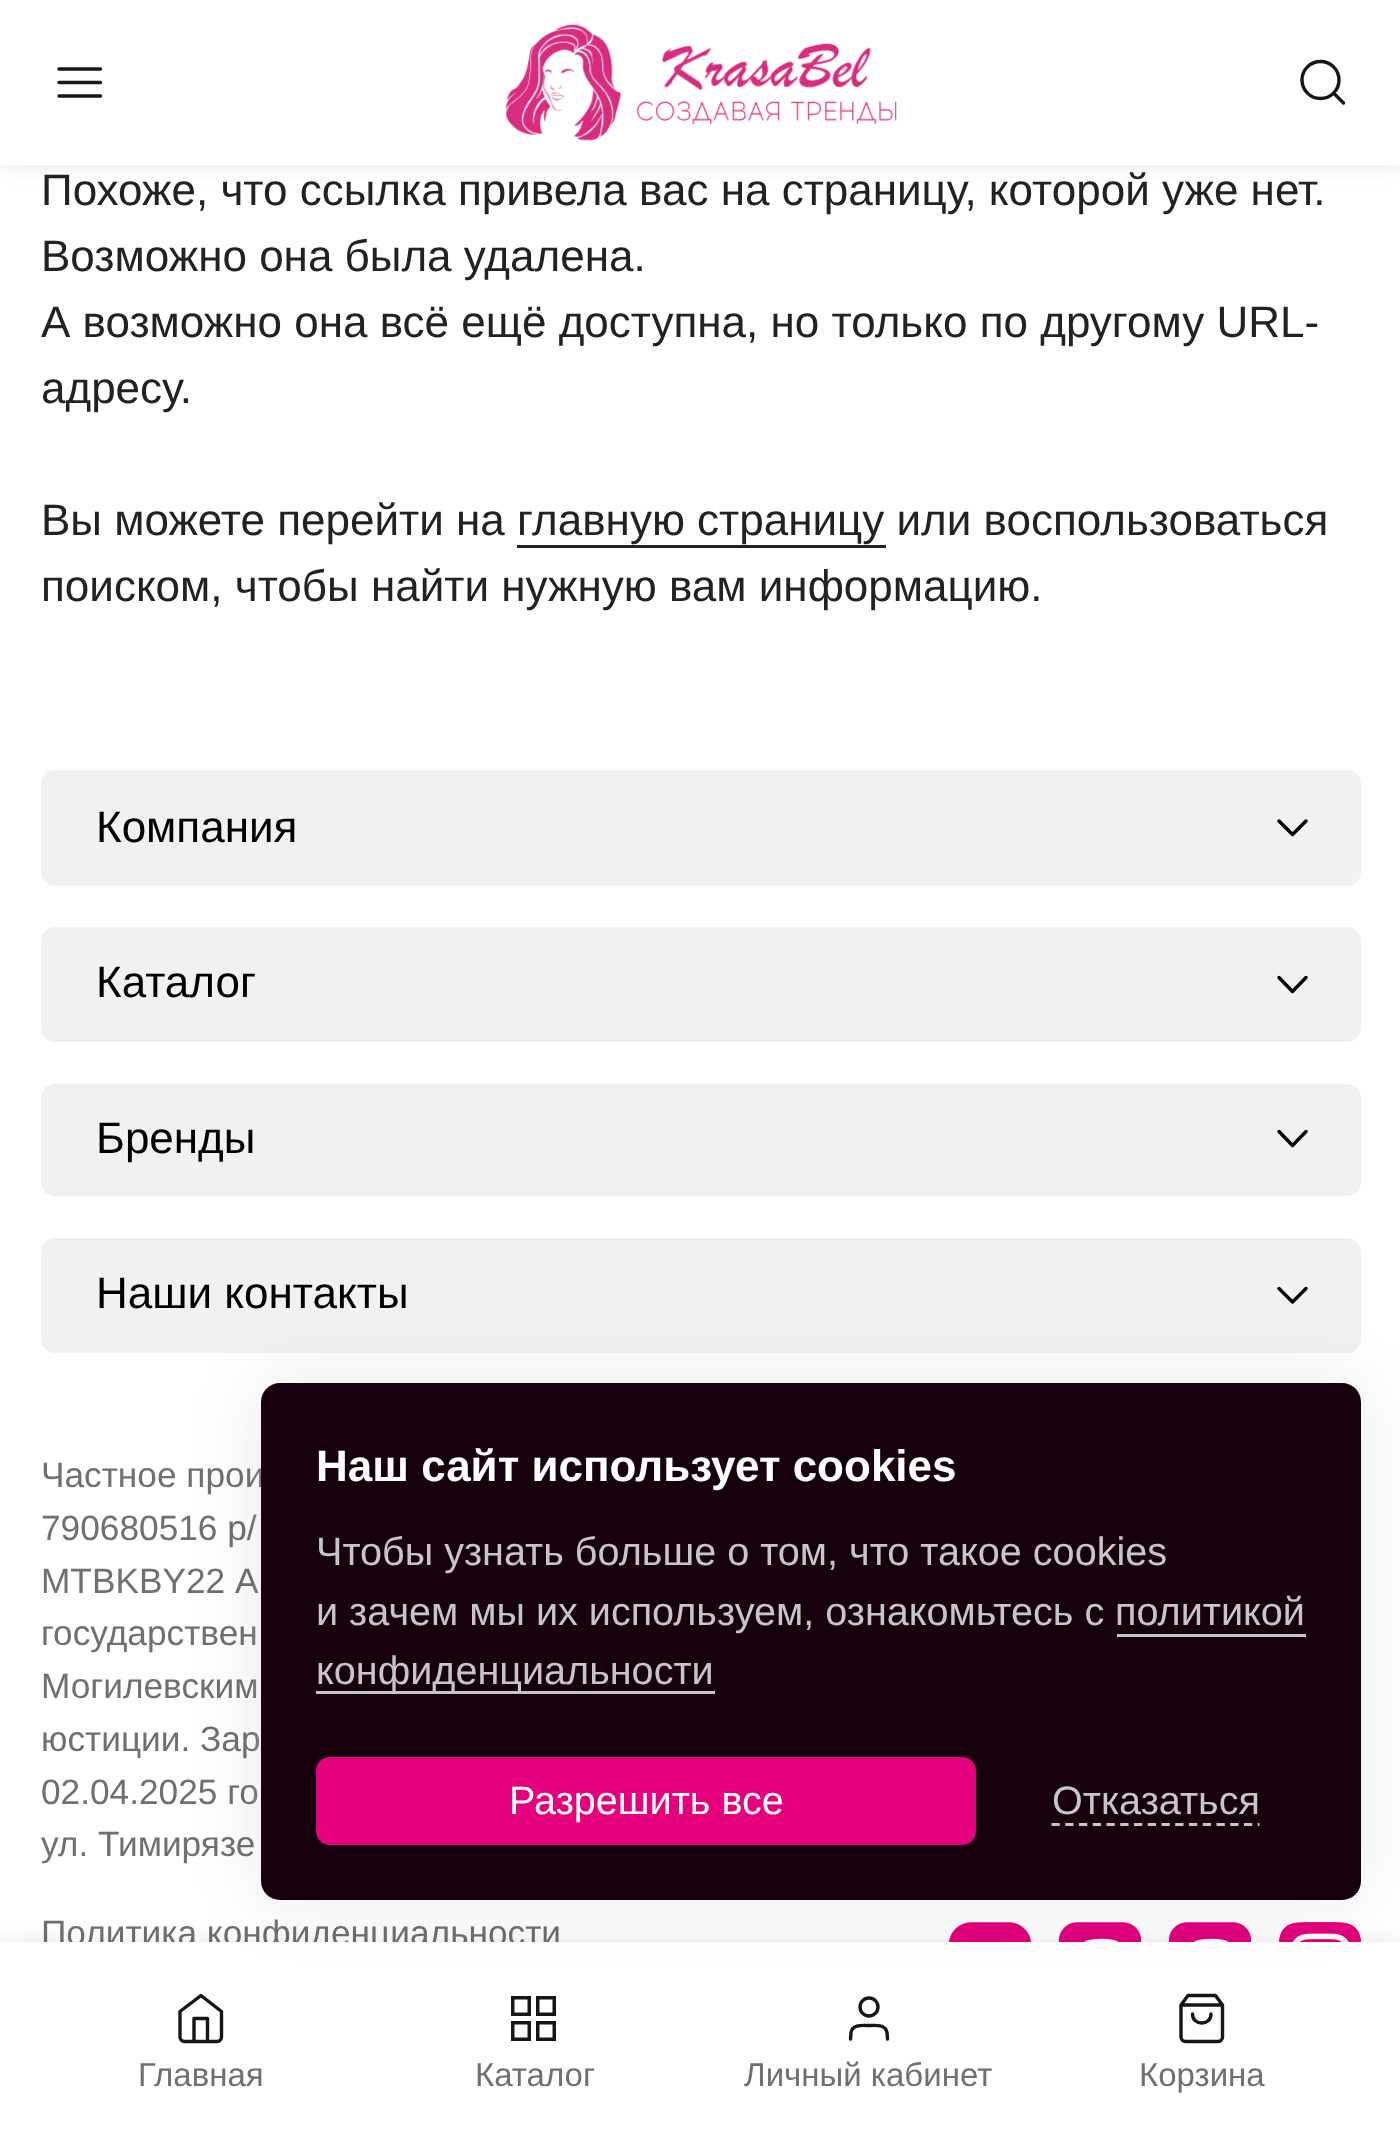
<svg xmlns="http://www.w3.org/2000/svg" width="1400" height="2138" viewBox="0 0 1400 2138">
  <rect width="100%" height="100%" fill="rgb(255,255,255)"/>
  <rect x="0" y="0" width="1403" height="165" fill="rgba(22,22,22,0.1)" filter="blur(11px)"/>
  <rect x="0" y="0" width="1400" height="165" fill="rgb(255,255,255)"/>
  <path d="M59 82.5H100.5M59 69H100.5M59 96H100.5" fill="none" stroke="rgb(22,22,22)" stroke-width="3.4" stroke-linecap="round" stroke-linejoin="round"/>
  <image x="506" y="24" width="391" height="117" href="pic1.png"/>
  <circle cx="1320.5" cy="80" r="18.5" fill="none" stroke="rgb(22,22,22)" stroke-width="3.4"/>
  <path d="M1343.5 103L1333.5 93" fill="none" stroke="rgb(22,22,22)" stroke-width="3.4" stroke-linecap="round" stroke-linejoin="round"/>
  <g font-family="Liberation Sans" font-size="44" fill="rgb(34,34,34)">
    <text>
      <tspan x="41" y="205">Похоже, что ссылка привела вас на страницу, которой уже нет.</tspan>
      <tspan x="41" y="271">Возможно она была удалена.</tspan>
      <tspan x="41" y="337">А возможно она всё ещё доступна, но только по другому URL-</tspan>
      <tspan x="41" y="403">адресу.</tspan>
    </text>
    <text x="41" y="535">Вы можете перейти на главную страницу или воспользоваться</text>
  </g>
  <rect x="517" y="545" width="369" height="3" fill="rgb(34,34,34)"/>
  <text x="41" y="601" font-family="Liberation Sans" font-size="44" fill="rgb(34,34,34)">поиском, чтобы найти нужную вам информацию.</text>
  <rect x="41" y="770" width="1320" height="116" rx="14" fill="rgb(241,241,241)"/>
  <text x="96" y="842" font-family="Liberation Sans" font-size="44" fill="rgb(0,0,0)">Компания</text>
  <path d="M1279 821L1292.5 834.5L1306 821" fill="none" stroke="rgb(0,0,0)" stroke-width="3.4" stroke-linecap="round" stroke-linejoin="round"/>
  <rect x="41" y="927" width="1320" height="115" rx="14" fill="rgb(241,241,241)"/>
  <text x="96" y="997" font-family="Liberation Sans" font-size="44" fill="rgb(0,0,0)">Каталог</text>
  <path d="M1279 977.5L1292.5 991.5L1306 977.5" fill="none" stroke="rgb(0,0,0)" stroke-width="3.4" stroke-linecap="round" stroke-linejoin="round"/>
  <rect x="41" y="1084" width="1320" height="112" rx="14" fill="rgb(241,241,241)"/>
  <text x="96" y="1153" font-family="Liberation Sans" font-size="44" fill="rgb(0,0,0)">Бренды</text>
  <path d="M1279 1131.5L1292.5 1145.5L1306 1131.5" fill="none" stroke="rgb(0,0,0)" stroke-width="3.4" stroke-linecap="round" stroke-linejoin="round"/>
  <rect x="41" y="1238" width="1320" height="115" rx="14" fill="rgb(241,241,241)"/>
  <text x="96" y="1308" font-family="Liberation Sans" font-size="44" fill="rgb(0,0,0)">Наши контакты</text>
  <path d="M1279 1288.5L1292.5 1302L1306 1288.5" fill="none" stroke="rgb(0,0,0)" stroke-width="3.4" stroke-linecap="round" stroke-linejoin="round"/>
  <g font-family="Liberation Sans" font-size="35.25" fill="rgb(112,112,112)">
    <text>
      <tspan x="41" y="1487">Частное прои</tspan>
      <tspan x="41" y="1540">790680516 р/</tspan>
      <tspan x="41" y="1593">MTBKBY22 А</tspan>
      <tspan x="41" y="1645">государствен</tspan>
      <tspan x="41" y="1698">Могилевским</tspan>
      <tspan x="41" y="1751">юстиции. Зар</tspan>
      <tspan x="41" y="1804">02.04.2025 го</tspan>
      <tspan x="41" y="1856">ул. Тимирязе</tspan>
    </text>
    <text x="41" y="1945">Политика конфиденциальности</text>
  </g>
  <image x="949" y="1922" width="82" height="20" href="pic2.png"/>
  <image x="1059" y="1922" width="82" height="20" href="pic3.png"/>
  <image x="1169" y="1922" width="82" height="20" href="pic3.png"/>
  <image x="1279" y="1922" width="82" height="20" href="pic4.png"/>
  <rect x="0" y="1942" width="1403" height="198" fill="rgba(22,22,22,0.1)" filter="blur(11px)"/>
  <rect x="0" y="1942" width="1400" height="196" fill="rgb(255,255,255)"/>
  <path d="M180 2011.5L201 1995.5L221.5 2011.5V2037C221.5 2039.5 219.5 2041.5 217 2041.5H184.5C182 2041.5 180 2039.5 180 2037ZM194 2041.5V2018.5H207.5V2041.5" fill="none" stroke="rgb(22,22,22)" stroke-width="3.4" stroke-linecap="round" stroke-linejoin="round"/>
  <text x="138" y="2086" font-family="Liberation Sans" font-size="33" fill="rgb(112,112,112)">Главная</text>
  <rect x="512.75" y="1997.75" width="16.5" height="16.5" fill="none" stroke="rgb(22,22,22)" stroke-width="3.5"/>
  <rect x="537.75" y="1997.75" width="16.5" height="16.5" fill="none" stroke="rgb(22,22,22)" stroke-width="3.5"/>
  <rect x="537.75" y="2022.75" width="16.5" height="16.5" fill="none" stroke="rgb(22,22,22)" stroke-width="3.5"/>
  <rect x="512.75" y="2022.75" width="16.5" height="16.5" fill="none" stroke="rgb(22,22,22)" stroke-width="3.5"/>
  <text x="475" y="2086" font-family="Liberation Sans" font-size="33" fill="rgb(112,112,112)">Каталог</text>
  <path d="M887.5 2039L887 2032.5C885.5 2024 875.5 2025.5 869 2025.5C862.5 2025.5 852.5 2024 851 2032.5L850.5 2039" fill="none" stroke="rgb(22,22,22)" stroke-width="3.4" stroke-linecap="round" stroke-linejoin="round"/>
  <circle cx="869" cy="2007" r="9" fill="none" stroke="rgb(22,22,22)" stroke-width="3.4"/>
  <text x="744" y="2086" font-family="Liberation Sans" font-size="33" fill="rgb(112,112,112)">Личный кабинет</text>
  <path d="M1188 1995.5L1181 2005V2037C1181 2039.5 1183 2041.5 1185.5 2041.5H1218C1220.5 2041.5 1222.5 2039.5 1222.5 2037V2005L1215.5 1995.5ZM1181 2005H1222.5M1211 2014C1211 2026 1192.5 2026 1192.5 2014" fill="none" stroke="rgb(22,22,22)" stroke-width="3.4" stroke-linecap="round" stroke-linejoin="round"/>
  <text x="1139" y="2086" font-family="Liberation Sans" font-size="33" fill="rgb(112,112,112)">Корзина</text>
  <rect x="261" y="1383" width="1100" height="517" rx="19" fill="rgba(22,22,22,0.1)" filter="blur(33px)"/>
  <rect x="257" y="1379" width="1109" height="526" rx="24" fill="none" stroke="rgba(255,255,255,0.1)" stroke-width="8"/>
  <rect x="261" y="1383" width="1100" height="517" rx="19" fill="rgb(23,0,13)"/>
  <text x="316" y="1481" font-family="Liberation Sans" font-size="44" font-weight="bold" fill="rgb(255,255,255)">Наш сайт использует cookies</text>
  <g font-family="Liberation Sans" font-size="39.6" fill="rgb(198,198,198)">
    <text>
      <tspan x="316" y="1565">Чтобы узнать больше о том, что такое cookies</tspan>
      <tspan x="316" y="1625">и зачем мы их используем, ознакомьтесь с</tspan>
    </text>
    <text x="1115" y="1625">политикой</text>
  </g>
  <rect x="1117" y="1634" width="189" height="3" fill="rgb(198,198,198)"/>
  <rect x="316" y="1691" width="399" height="3" fill="rgb(198,198,198)"/>
  <text x="316" y="1684" font-family="Liberation Sans" font-size="39.6" fill="rgb(198,198,198)">конфиденциальности</text>
  <rect x="316" y="1757" width="660" height="88" rx="14" fill="rgb(229,0,126)"/>
  <text x="509" y="1814" font-family="Liberation Sans" font-size="39.6" fill="rgb(255,255,255)">Разрешить все</text>
  <text x="1052" y="1814" font-family="Liberation Sans" font-size="39.6" fill="rgb(198,198,198)">Отказаться</text>
  <path d="M1051.5 1824.5H1259.5" fill="none" stroke="rgb(198,198,198)" stroke-width="2.8" stroke-dasharray="8.25 5.5"/>
</svg>
